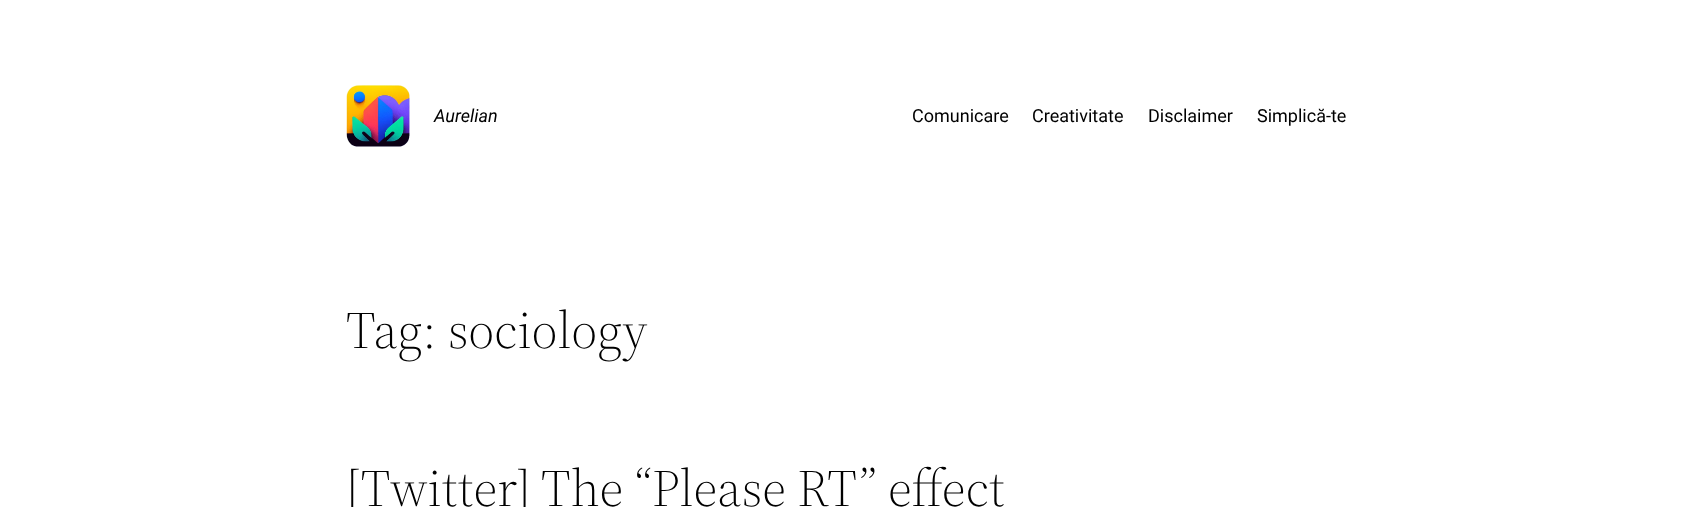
<svg xmlns="http://www.w3.org/2000/svg" width="1692" height="507" viewBox="0 0 1692 507">
  <rect width="100%" height="100%" fill="rgb(255,255,255)"/>
  <image x="346" y="85" width="64" height="62" href="pic1.png"/>
  <text x="434" y="122" font-family="Roboto" font-size="18" font-style="italic" fill="rgb(0,0,0)">Aurelian</text>
  <g font-family="Roboto" font-size="18" fill="rgb(0,0,0)">
    <text x="912" y="122">Comunicare</text>
    <text x="1032" y="122">Creativitate</text>
    <text x="1148" y="122">Disclaimer</text>
    <text x="1257" y="122">Simplică-te</text>
  </g>
  <g font-family="'Source Serif 4'" font-size="52" font-weight="300" fill="rgb(0,0,0)">
    <text x="346" y="348">Tag: sociology</text>
    <text x="346" y="506">[Twitter] The “Please RT” effect</text>
  </g>
</svg>
